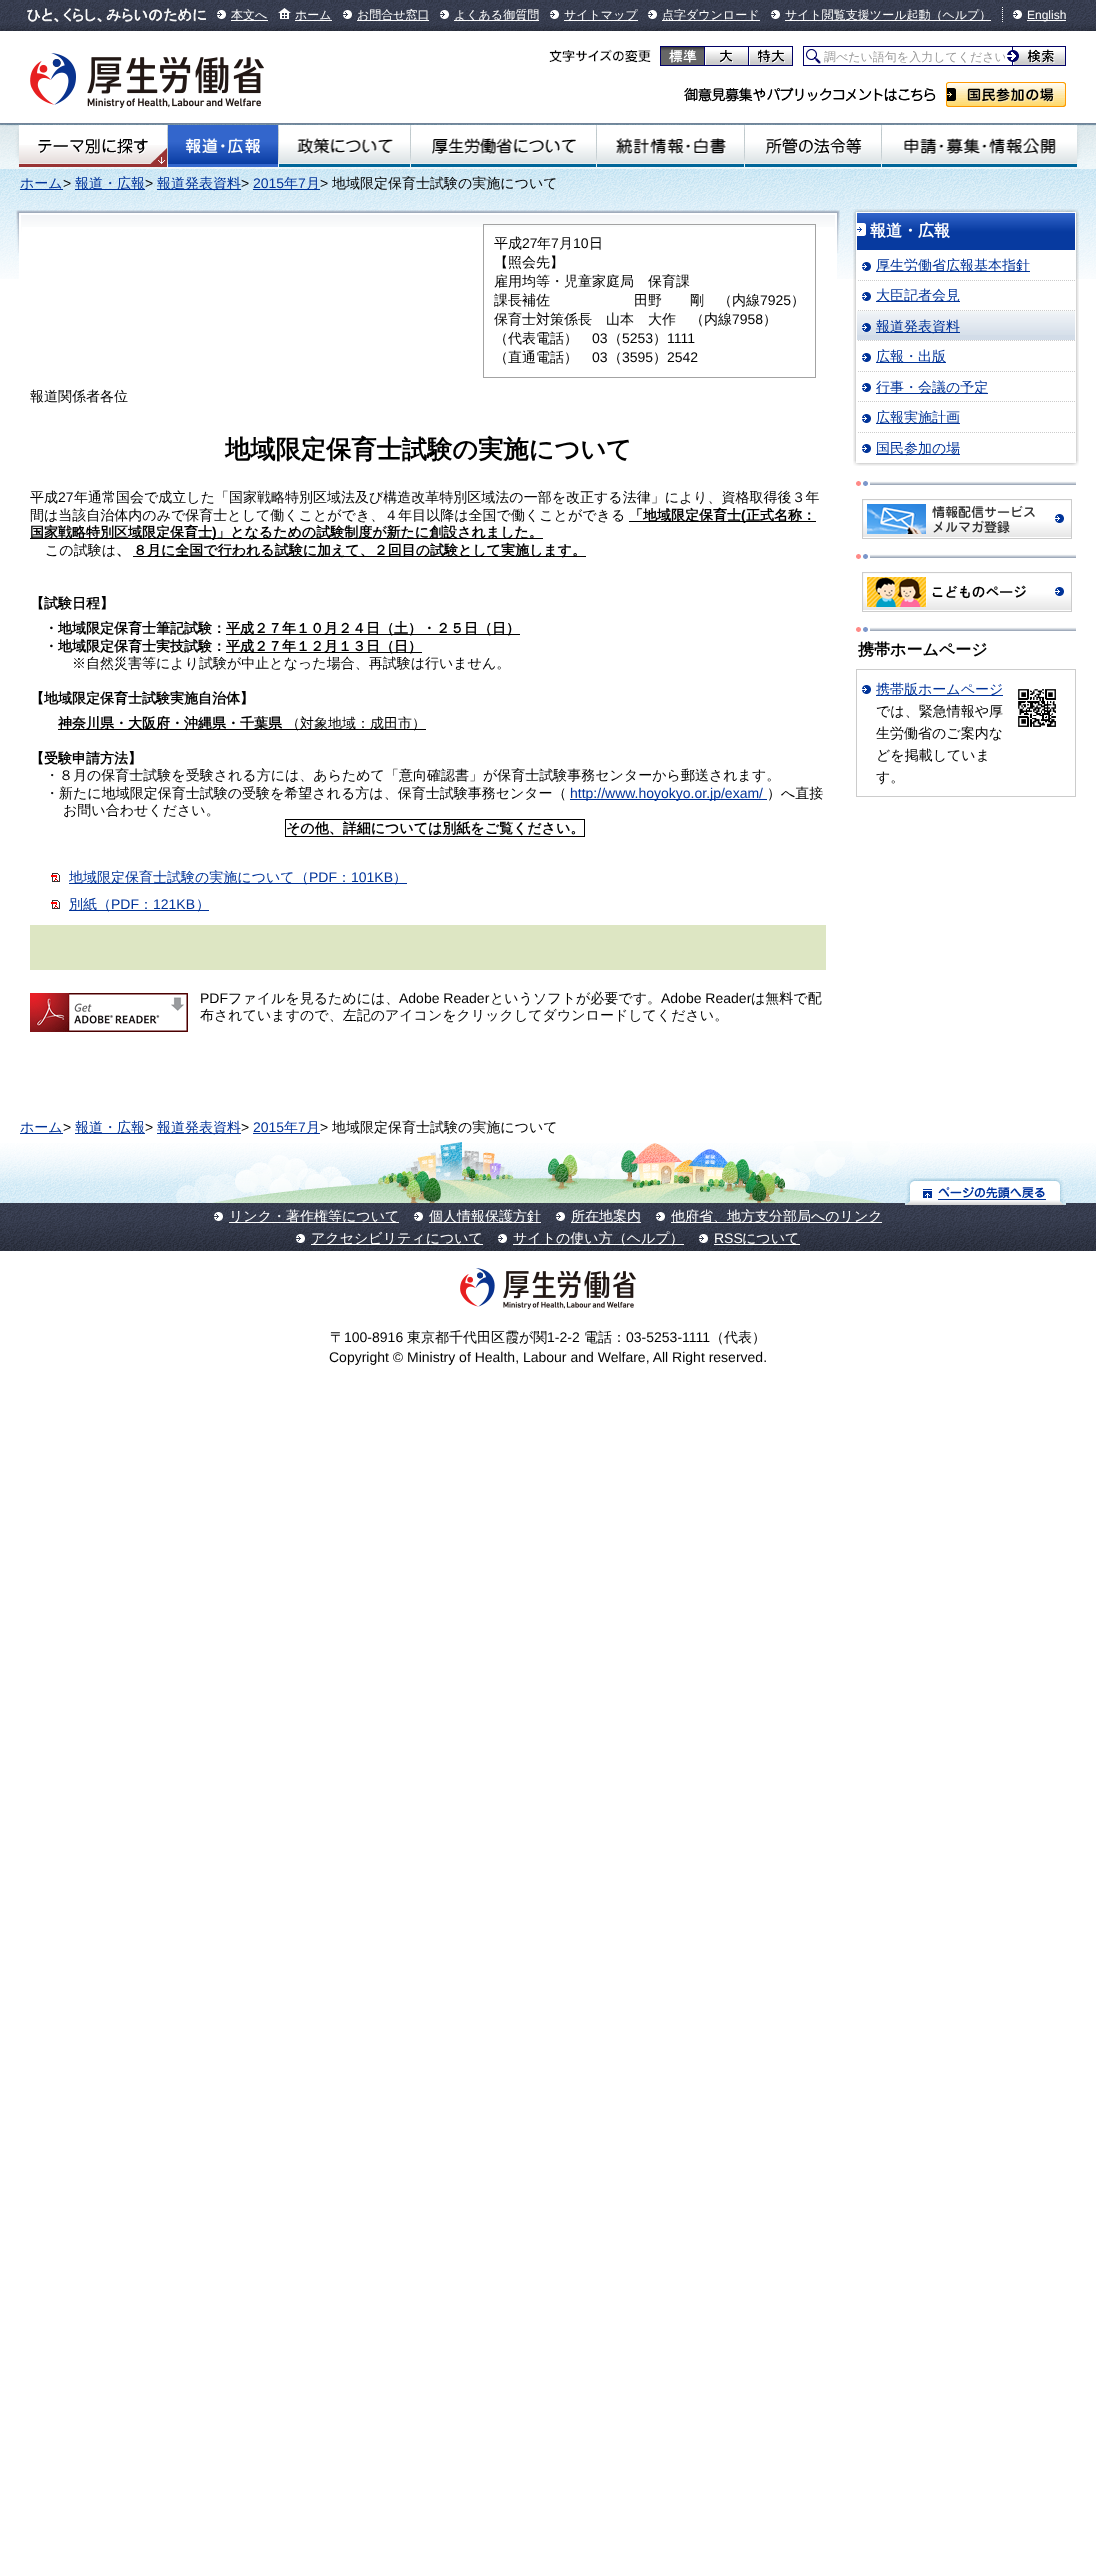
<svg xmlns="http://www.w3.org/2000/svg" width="1096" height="2573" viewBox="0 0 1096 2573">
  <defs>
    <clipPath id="clip1"><rect x="824" y="49" width="181" height="16"/></clipPath>
  </defs>
  <rect width="100%" height="100%" fill="rgb(255,255,255)"/>
  <image x="0" y="0" width="1096" height="1" href="pic1.png"/>
  <image x="0" y="1" width="1096" height="30" href="pic2.png"/>
  <image x="26" y="7" width="181" height="16" href="pic3.png"/>
  <image x="217" y="7" width="9" height="15" href="pic4.png"/>
  <rect x="231" y="20" width="37" height="1" fill="rgb(255,255,255)"/>
  <text x="231" y="19" font-family="WenQuanYi Zen Hei" font-size="12" font-weight="500" fill="rgb(255,255,255)">本文へ</text>
  <image x="278" y="7" width="13" height="13" href="pic5.png"/>
  <rect x="295" y="20" width="37" height="1" fill="rgb(255,255,255)"/>
  <text x="295" y="19" font-family="WenQuanYi Zen Hei" font-size="12" font-weight="500" fill="rgb(255,255,255)">ホーム</text>
  <image x="343" y="7" width="9" height="15" href="pic4.png"/>
  <rect x="357" y="20" width="72" height="1" fill="rgb(255,255,255)"/>
  <text x="357" y="19" font-family="WenQuanYi Zen Hei" font-size="12" font-weight="500" fill="rgb(255,255,255)">お問合せ窓口</text>
  <image x="440" y="7" width="9" height="15" href="pic4.png"/>
  <rect x="454" y="20" width="85" height="1" fill="rgb(255,255,255)"/>
  <text x="454" y="19" font-family="WenQuanYi Zen Hei" font-size="12" font-weight="500" fill="rgb(255,255,255)">よくある御質問</text>
  <image x="550" y="7" width="9" height="15" href="pic4.png"/>
  <rect x="564" y="20" width="74" height="1" fill="rgb(255,255,255)"/>
  <text x="564" y="19" font-family="WenQuanYi Zen Hei" font-size="12" font-weight="500" fill="rgb(255,255,255)">サイトマップ</text>
  <image x="648" y="7" width="9" height="15" href="pic4.png"/>
  <rect x="662" y="20" width="98" height="1" fill="rgb(255,255,255)"/>
  <text x="662" y="19" font-family="WenQuanYi Zen Hei" font-size="12" font-weight="500" fill="rgb(255,255,255)">点字ダウンロード</text>
  <image x="771" y="7" width="9" height="15" href="pic4.png"/>
  <rect x="785" y="20" width="206" height="1" fill="rgb(255,255,255)"/>
  <text x="785" y="19" font-family="WenQuanYi Zen Hei" font-size="12" font-weight="500" fill="rgb(255,255,255)">サイト閲覧支援ツール起動（ヘルプ）</text>
  <image x="1002" y="7" width="20" height="15" href="pic6.png"/>
  <rect x="1027" y="20" width="39" height="1" fill="rgb(255,255,255)"/>
  <text x="1027" y="19" font-family="Liberation Sans" font-size="12" fill="rgb(255,255,255)">English</text>
  <image x="30" y="53" width="234" height="55" href="pic7.png"/>
  <rect x="792" y="46" width="1" height="20" fill="rgb(1,1,103)"/>
  <rect x="660" y="65" width="133" height="1" fill="rgb(1,1,103)"/>
  <rect x="660" y="46" width="132" height="1" fill="rgb(1,1,103)"/>
  <rect x="660" y="46" width="1" height="19" fill="rgb(1,1,103)"/>
  <image x="661" y="47" width="43" height="18" href="pic8.png"/>
  <image x="549" y="49" width="102" height="14" href="pic9.png"/>
  <rect x="704" y="46" width="1" height="19" fill="rgb(1,1,103)"/>
  <image x="706" y="50" width="42" height="15" href="pic10.png"/>
  <rect x="748" y="46" width="1" height="19" fill="rgb(1,1,103)"/>
  <image x="750" y="49" width="42" height="16" href="pic11.png"/>
  <image x="806" y="49" width="15" height="15" href="pic12.png"/>
  <rect x="803.5" y="46.5" width="262" height="19" fill="none" stroke="rgb(1,1,103)"/>
  <g clip-path="url(#clip1)">
    <text x="824" y="61" font-family="WenQuanYi Zen Hei" font-size="12" font-weight="500" fill="rgb(153,153,153)">調べたい語句を入力してください</text>
  </g>
  <image x="1012" y="63" width="53" height="2" href="pic13.png"/>
  <image x="1007" y="47" width="58" height="16" href="pic14.png"/>
  <image x="684" y="87" width="252" height="15" href="pic15.png"/>
  <image x="946" y="82" width="120" height="25" href="pic16.png"/>
  <image x="0" y="123" width="1096" height="46" href="pic17.png"/>
  <image x="1077" y="125" width="7" height="42" href="pic18.png"/>
  <image x="12" y="125" width="155" height="42" href="pic19.png"/>
  <image x="19" y="145" width="148" height="22" href="pic20.png"/>
  <image x="38" y="138" width="110" height="17" href="pic21.png"/>
  <image x="167" y="125" width="1" height="42" href="pic22.png"/>
  <image x="168" y="125" width="110" height="42" href="pic23.png"/>
  <image x="278" y="125" width="132" height="42" href="pic24.png"/>
  <image x="297" y="138" width="96" height="17" href="pic25.png"/>
  <image x="410" y="125" width="186" height="42" href="pic26.png"/>
  <image x="411" y="130" width="165" height="37" href="pic27.png"/>
  <image x="596" y="125" width="148" height="42" href="pic28.png"/>
  <image x="616" y="138" width="110" height="17" href="pic29.png"/>
  <image x="744" y="125" width="137" height="42" href="pic30.png"/>
  <image x="766" y="138" width="96" height="17" href="pic31.png"/>
  <image x="881" y="125" width="196" height="42" href="pic32.png"/>
  <image x="882" y="130" width="174" height="37" href="pic33.png"/>
  <image x="0" y="169" width="1096" height="110" href="pic34.png"/>
  <rect x="20" y="189" width="43" height="1" fill="rgb(0,51,153)"/>
  <text x="20" y="188" font-family="WenQuanYi Zen Hei" font-size="14" font-weight="500" fill="rgb(0,51,153)">ホーム</text>
  <text x="63" y="188" font-family="Liberation Sans" font-size="14" fill="rgb(0,0,0)">&gt;</text>
  <rect x="75" y="189" width="70" height="1" fill="rgb(0,51,153)"/>
  <text x="75" y="188" font-family="WenQuanYi Zen Hei" font-size="14" font-weight="500" fill="rgb(0,51,153)">報道・広報</text>
  <text x="145" y="188" font-family="Liberation Sans" font-size="14" fill="rgb(0,0,0)">&gt;</text>
  <rect x="157" y="189" width="84" height="1" fill="rgb(0,51,153)"/>
  <text x="157" y="188" font-family="WenQuanYi Zen Hei" font-size="14" font-weight="500" fill="rgb(0,51,153)">報道発表資料</text>
  <text x="241" y="188" font-family="Liberation Sans" font-size="14" fill="rgb(0,0,0)">&gt;</text>
  <text x="253" y="188" font-family="Liberation Sans" font-size="14" fill="rgb(0,51,153)">2015</text>
  <rect x="253" y="189" width="67" height="1" fill="rgb(0,51,153)"/>
  <text x="284" y="188" font-family="WenQuanYi Zen Hei" font-size="14" font-weight="500" fill="rgb(0,51,153)">年</text>
  <text x="298" y="188" font-family="Liberation Sans" font-size="14" fill="rgb(0,51,153)">7</text>
  <text x="306" y="188" font-family="WenQuanYi Zen Hei" font-size="14" font-weight="500" fill="rgb(0,51,153)">月</text>
  <text x="320" y="188" font-family="Liberation Sans" font-size="14" fill="rgb(0,0,0)">&gt;</text>
  <text x="332" y="188" font-family="WenQuanYi Zen Hei" font-size="14" font-weight="500" fill="rgb(0,0,0)">地域限定保育士試験の実施について</text>
  <rect x="19" y="227" width="818" height="52" fill="rgb(255,255,255)"/>
  <image x="16" y="210" width="6" height="43" href="pic35.png"/>
  <image x="834" y="210" width="6" height="43" href="pic36.png"/>
  <image x="22" y="210" width="812" height="17" href="pic37.png"/>
  <rect x="483.5" y="224.5" width="332" height="153" fill="none" stroke="rgb(163,163,163)"/>
  <text x="494" y="248" font-family="WenQuanYi Zen Hei" font-size="14" font-weight="500" fill="rgb(0,0,0)">平成</text>
  <text x="522" y="248" font-family="Liberation Sans" font-size="14" fill="rgb(0,0,0)">27</text>
  <text x="537" y="248" font-family="WenQuanYi Zen Hei" font-size="14" font-weight="500" fill="rgb(0,0,0)">年</text>
  <text x="551" y="248" font-family="Liberation Sans" font-size="14" fill="rgb(0,0,0)">7</text>
  <text x="559" y="248" font-family="WenQuanYi Zen Hei" font-size="14" font-weight="500" fill="rgb(0,0,0)">月</text>
  <text x="573" y="248" font-family="Liberation Sans" font-size="14" fill="rgb(0,0,0)">10</text>
  <g font-family="WenQuanYi Zen Hei" font-size="14" font-weight="500" fill="rgb(0,0,0)">
    <text x="589" y="248">日</text>
    <text>
      <tspan x="494" y="267">【照会先】</tspan>
      <tspan x="494" y="286">雇用均等・児童家庭局　保育課</tspan>
      <tspan x="494" y="305">課長補佐　　　　　　田野　　剛　（内線</tspan>
    </text>
  </g>
  <text x="760" y="305" font-family="Liberation Sans" font-size="14" fill="rgb(0,0,0)">7925</text>
  <g font-family="WenQuanYi Zen Hei" font-size="14" font-weight="500" fill="rgb(0,0,0)">
    <text x="791" y="305">）</text>
    <text x="494" y="324">保育士対策係長　山本　大作　（内線</text>
  </g>
  <text x="732" y="324" font-family="Liberation Sans" font-size="14" fill="rgb(0,0,0)">7958</text>
  <g font-family="WenQuanYi Zen Hei" font-size="14" font-weight="500" fill="rgb(0,0,0)">
    <text x="763" y="324">）</text>
    <text x="494" y="343">（代表電話）</text>
  </g>
  <text x="592" y="343" font-family="Liberation Sans" font-size="14" fill="rgb(0,0,0)">03</text>
  <text x="608" y="343" font-family="WenQuanYi Zen Hei" font-size="14" font-weight="500" fill="rgb(0,0,0)">（</text>
  <text x="622" y="343" font-family="Liberation Sans" font-size="14" fill="rgb(0,0,0)">5253</text>
  <text x="653" y="343" font-family="WenQuanYi Zen Hei" font-size="14" font-weight="500" fill="rgb(0,0,0)">）</text>
  <text x="667" y="343" font-family="Liberation Sans" font-size="14" fill="rgb(0,0,0)">1111</text>
  <text x="494" y="362" font-family="WenQuanYi Zen Hei" font-size="14" font-weight="500" fill="rgb(0,0,0)">（直通電話）</text>
  <text x="592" y="362" font-family="Liberation Sans" font-size="14" fill="rgb(0,0,0)">03</text>
  <text x="608" y="362" font-family="WenQuanYi Zen Hei" font-size="14" font-weight="500" fill="rgb(0,0,0)">（</text>
  <text x="622" y="362" font-family="Liberation Sans" font-size="14" fill="rgb(0,0,0)">3595</text>
  <text x="653" y="362" font-family="WenQuanYi Zen Hei" font-size="14" font-weight="500" fill="rgb(0,0,0)">）</text>
  <text x="667" y="362" font-family="Liberation Sans" font-size="14" fill="rgb(0,0,0)">2542</text>
  <text x="30" y="401" font-family="WenQuanYi Zen Hei" font-size="14" font-weight="500" fill="rgb(0,0,0)">報道関係者各位</text>
  <text x="225" y="458" font-family="WenQuanYi Zen Hei" font-size="25.25" font-weight="bold" fill="rgb(0,0,0)">地域限定保育士試験の実施について</text>
  <text x="30" y="502" font-family="WenQuanYi Zen Hei" font-size="14" font-weight="500" fill="rgb(0,0,0)">平成</text>
  <text x="58" y="502" font-family="Liberation Sans" font-size="14" fill="rgb(0,0,0)">27</text>
  <g font-family="WenQuanYi Zen Hei" font-size="14" font-weight="500" fill="rgb(0,0,0)">
    <text x="74" y="502">年通常国会で成立した「国家戦略特別区域法及び構造改革特別区域法の一部を改正する法律」により、資格取得後３年</text>
    <text x="30" y="520">間は当該自治体内のみで保育士として働くことができ、４年目以降は全国で働くことができる</text>
  </g>
  <rect x="629" y="521" width="187" height="1" fill="rgb(0,0,0)"/>
  <text x="629" y="520" font-family="WenQuanYi Zen Hei" font-size="14" font-weight="bold" fill="rgb(0,0,0)">「地域限定保育士</text>
  <text x="741" y="520" font-family="Liberation Sans" font-size="14" font-weight="bold" fill="rgb(0,0,0)">(</text>
  <text x="746" y="520" font-family="WenQuanYi Zen Hei" font-size="14" font-weight="bold" fill="rgb(0,0,0)">正式名称：</text>
  <rect x="30" y="538" width="513" height="1" fill="rgb(0,0,0)"/>
  <text x="30" y="537" font-family="WenQuanYi Zen Hei" font-size="14" font-weight="bold" fill="rgb(0,0,0)">国家戦略特別区域限定保育士 」となるための試験制度が新たに創設されました。</text>
  <text x="212" y="537" font-family="Liberation Sans" font-size="14" font-weight="bold" fill="rgb(0,0,0)">)</text>
  <text x="45" y="555" font-family="WenQuanYi Zen Hei" font-size="14" font-weight="500" fill="rgb(0,0,0)">この試験は</text>
  <text x="116" y="555" font-family="WenQuanYi Zen Hei" font-size="14" font-weight="bold" fill="rgb(0,0,0)">、</text>
  <rect x="133" y="556" width="453" height="1" fill="rgb(0,0,0)"/>
  <g font-family="WenQuanYi Zen Hei" font-size="14" font-weight="bold" fill="rgb(0,0,0)">
    <text x="133" y="555">８月に全国で行われる試験に加えて、２回目の試験として実施します。</text>
    <text x="30" y="608">【試験日程】</text>
    <text x="44" y="633">・地域限定保育士筆記試験：</text>
  </g>
  <rect x="226" y="634" width="294" height="1" fill="rgb(0,0,0)"/>
  <g font-family="WenQuanYi Zen Hei" font-size="14" font-weight="bold" fill="rgb(0,0,0)">
    <text x="226" y="633">平成２７年１０月２４日（土）・２５日（日）</text>
    <text x="44" y="651">・地域限定保育士実技試験：</text>
  </g>
  <rect x="226" y="652" width="196" height="1" fill="rgb(0,0,0)"/>
  <text x="226" y="651" font-family="WenQuanYi Zen Hei" font-size="14" font-weight="bold" fill="rgb(0,0,0)">平成２７年１２月１３日（日）</text>
  <text x="72" y="668" font-family="WenQuanYi Zen Hei" font-size="14" font-weight="500" fill="rgb(0,0,0)">※自然災害等により試験が中止となった場合、再試験は行いません。</text>
  <text x="30" y="703" font-family="WenQuanYi Zen Hei" font-size="14" font-weight="bold" fill="rgb(0,0,0)">【地域限定保育士試験実施自治体】</text>
  <rect x="58" y="729" width="224" height="1" fill="rgb(0,0,0)"/>
  <text x="58" y="728" font-family="WenQuanYi Zen Hei" font-size="14" font-weight="bold" fill="rgb(0,0,0)">神奈川県・大阪府・沖縄県・千葉県</text>
  <rect x="282" y="729" width="144" height="1" fill="rgb(0,0,0)"/>
  <text x="286" y="728" font-family="WenQuanYi Zen Hei" font-size="14" font-weight="500" fill="rgb(0,0,0)">（対象地域：成田市）</text>
  <text x="30" y="763" font-family="WenQuanYi Zen Hei" font-size="14" font-weight="bold" fill="rgb(0,0,0)">【受験申請方法】</text>
  <g font-family="WenQuanYi Zen Hei" font-size="14" font-weight="500" fill="rgb(0,0,0)">
    <text>
      <tspan x="45" y="780">・８月の保育士試験を受験される方には、あらためて「意向確認書」が保育士試験事務センターから郵送されます。</tspan>
      <tspan x="45" y="798">・新たに地域限定保育士試験の受験を希望される方は、保育士試験事務センター（</tspan>
    </text>
  </g>
  <rect x="570" y="799" width="193" height="1" fill="rgb(0,51,153)"/>
  <text x="570" y="798" font-family="Liberation Sans" font-size="14" fill="rgb(0,51,153)">http://www.hoyokyo.or.jp/exam/</text>
  <rect x="763" y="799" width="4" height="1" fill="rgb(0,51,153)"/>
  <g font-family="WenQuanYi Zen Hei" font-size="14" font-weight="500" fill="rgb(0,0,0)">
    <text x="767" y="798">）へ直接</text>
    <text x="63" y="815">お問い合わせください。</text>
  </g>
  <rect x="285.5" y="819.5" width="299" height="17" fill="none" stroke="rgb(0,0,0)"/>
  <text x="286" y="833" font-family="WenQuanYi Zen Hei" font-size="14" font-weight="bold" fill="rgb(0,0,0)">その他、詳細については別紙をご覧ください。</text>
  <image x="51" y="873" width="9" height="9" href="pic38.png"/>
  <rect x="69" y="883" width="338" height="1" fill="rgb(0,51,153)"/>
  <text x="69" y="882" font-family="WenQuanYi Zen Hei" font-size="14" font-weight="500" fill="rgb(0,51,153)">地域限定保育士試験の実施について（</text>
  <text x="309" y="882" font-family="Liberation Sans" font-size="14" fill="rgb(0,51,153)">PDF</text>
  <text x="337" y="882" font-family="WenQuanYi Zen Hei" font-size="14" font-weight="500" fill="rgb(0,51,153)">：</text>
  <text x="351" y="882" font-family="Liberation Sans" font-size="14" fill="rgb(0,51,153)">101KB</text>
  <text x="393" y="882" font-family="WenQuanYi Zen Hei" font-size="14" font-weight="500" fill="rgb(0,51,153)">）</text>
  <image x="51" y="900" width="9" height="9" href="pic38.png"/>
  <rect x="69" y="910" width="140" height="1" fill="rgb(0,51,153)"/>
  <text x="69" y="909" font-family="WenQuanYi Zen Hei" font-size="14" font-weight="500" fill="rgb(0,51,153)">別紙（</text>
  <text x="111" y="909" font-family="Liberation Sans" font-size="14" fill="rgb(0,51,153)">PDF</text>
  <text x="139" y="909" font-family="WenQuanYi Zen Hei" font-size="14" font-weight="500" fill="rgb(0,51,153)">：</text>
  <text x="153" y="909" font-family="Liberation Sans" font-size="14" fill="rgb(0,51,153)">121KB</text>
  <text x="196" y="909" font-family="WenQuanYi Zen Hei" font-size="14" font-weight="500" fill="rgb(0,51,153)">）</text>
  <rect x="30" y="925" width="796" height="45" fill="rgb(221,230,195)"/>
  <image x="30" y="993" width="158" height="39" href="pic39.png"/>
  <text x="200" y="1003" font-family="Liberation Sans" font-size="14" fill="rgb(0,0,0)">PDF</text>
  <text x="228" y="1003" font-family="WenQuanYi Zen Hei" font-size="14" font-weight="500" fill="rgb(0,0,0)">ファイルを見るためには、</text>
  <text x="399" y="1003" font-family="Liberation Sans" font-size="14" fill="rgb(0,0,0)">Adobe Reader</text>
  <text x="490" y="1003" font-family="WenQuanYi Zen Hei" font-size="14" font-weight="500" fill="rgb(0,0,0)">というソフトが必要です。</text>
  <text x="661" y="1003" font-family="Liberation Sans" font-size="14" fill="rgb(0,0,0)">Adobe Reader</text>
  <g font-family="WenQuanYi Zen Hei" font-size="14" font-weight="500" fill="rgb(0,0,0)">
    <text x="751" y="1003">は無料で配</text>
    <text x="200" y="1020">布されていますので、左記のアイコンをクリックしてダウンロードしてください。</text>
  </g>
  <image x="853" y="209" width="226" height="5" href="pic40.png"/>
  <image x="853" y="461" width="226" height="5" href="pic41.png"/>
  <image x="853" y="214" width="226" height="247" href="pic42.png"/>
  <rect x="857" y="236" width="218" height="14" fill="rgb(7,58,160)"/>
  <image x="857" y="214" width="218" height="22" href="pic43.png"/>
  <text x="870" y="236" font-family="WenQuanYi Zen Hei" font-size="16" font-weight="bold" fill="rgb(255,255,255)">報道・広報</text>
  <image x="862" y="262" width="9" height="9" href="pic44.png"/>
  <rect x="876" y="271" width="154" height="1" fill="rgb(0,51,153)"/>
  <text x="876" y="270" font-family="WenQuanYi Zen Hei" font-size="14" font-weight="500" fill="rgb(0,51,153)">厚生労働省広報基本指針</text>
  <image x="858" y="280" width="217" height="1" href="pic45.png"/>
  <image x="862" y="292" width="9" height="9" href="pic44.png"/>
  <rect x="876" y="301" width="84" height="1" fill="rgb(0,51,153)"/>
  <text x="876" y="300" font-family="WenQuanYi Zen Hei" font-size="14" font-weight="500" fill="rgb(0,51,153)">大臣記者会見</text>
  <rect x="857" y="335" width="218" height="5" fill="rgb(210,220,232)"/>
  <image x="857" y="310" width="218" height="25" href="pic46.png"/>
  <image x="862" y="323" width="9" height="9" href="pic47.png"/>
  <rect x="876" y="332" width="84" height="1" fill="rgb(0,51,153)"/>
  <text x="876" y="331" font-family="WenQuanYi Zen Hei" font-size="14" font-weight="500" fill="rgb(0,51,153)">報道発表資料</text>
  <image x="858" y="340" width="217" height="1" href="pic45.png"/>
  <image x="862" y="353" width="9" height="9" href="pic44.png"/>
  <rect x="876" y="362" width="70" height="1" fill="rgb(0,51,153)"/>
  <text x="876" y="361" font-family="WenQuanYi Zen Hei" font-size="14" font-weight="500" fill="rgb(0,51,153)">広報・出版</text>
  <image x="858" y="371" width="217" height="1" href="pic45.png"/>
  <image x="862" y="383" width="9" height="9" href="pic44.png"/>
  <rect x="876" y="393" width="112" height="1" fill="rgb(0,51,153)"/>
  <text x="876" y="392" font-family="WenQuanYi Zen Hei" font-size="14" font-weight="500" fill="rgb(0,51,153)">行事・会議の予定</text>
  <image x="858" y="401" width="217" height="1" href="pic45.png"/>
  <image x="862" y="414" width="9" height="9" href="pic44.png"/>
  <rect x="876" y="423" width="84" height="1" fill="rgb(0,51,153)"/>
  <text x="876" y="422" font-family="WenQuanYi Zen Hei" font-size="14" font-weight="500" fill="rgb(0,51,153)">広報実施計画</text>
  <image x="858" y="432" width="217" height="1" href="pic45.png"/>
  <image x="862" y="444" width="9" height="9" href="pic44.png"/>
  <rect x="876" y="454" width="84" height="1" fill="rgb(0,51,153)"/>
  <text x="876" y="453" font-family="WenQuanYi Zen Hei" font-size="14" font-weight="500" fill="rgb(0,51,153)">国民参加の場</text>
  <image x="856" y="481" width="220" height="5" href="pic48.png"/>
  <rect x="862.5" y="499.5" width="209" height="39" fill="none" stroke="rgb(204,204,204)"/>
  <image x="863" y="500" width="208" height="37" href="pic49.png"/>
  <image x="856" y="554" width="220" height="5" href="pic48.png"/>
  <rect x="862.5" y="572.5" width="209" height="39" fill="none" stroke="rgb(204,204,204)"/>
  <image x="863" y="573" width="208" height="37" href="pic50.png"/>
  <image x="856" y="627" width="220" height="5" href="pic48.png"/>
  <text x="858" y="655" font-family="WenQuanYi Zen Hei" font-size="16" font-weight="bold" fill="rgb(0,0,0)">携帯ホームページ</text>
  <rect x="856.5" y="669.5" width="219" height="127" fill="none" stroke="rgb(204,204,204)"/>
  <image x="862" y="685" width="9" height="9" href="pic44.png"/>
  <rect x="876" y="695" width="127" height="1" fill="rgb(0,51,153)"/>
  <text x="876" y="694" font-family="WenQuanYi Zen Hei" font-size="14" font-weight="500" fill="rgb(0,51,153)">携帯版ホームページ</text>
  <g font-family="WenQuanYi Zen Hei" font-size="14" font-weight="500" fill="rgb(0,0,0)">
    <text>
      <tspan x="876" y="716">では、緊急情報や厚</tspan>
      <tspan x="876" y="738">生労働省のご案内な</tspan>
      <tspan x="876" y="760">どを掲載していま</tspan>
      <tspan x="876" y="782">す。</tspan>
    </text>
  </g>
  <image x="1017" y="689" width="40" height="38" href="pic51.png"/>
  <rect x="20" y="1133" width="43" height="1" fill="rgb(0,51,153)"/>
  <text x="20" y="1132" font-family="WenQuanYi Zen Hei" font-size="14" font-weight="500" fill="rgb(0,51,153)">ホーム</text>
  <text x="63" y="1132" font-family="Liberation Sans" font-size="14" fill="rgb(0,0,0)">&gt;</text>
  <rect x="75" y="1133" width="70" height="1" fill="rgb(0,51,153)"/>
  <text x="75" y="1132" font-family="WenQuanYi Zen Hei" font-size="14" font-weight="500" fill="rgb(0,51,153)">報道・広報</text>
  <text x="145" y="1132" font-family="Liberation Sans" font-size="14" fill="rgb(0,0,0)">&gt;</text>
  <rect x="157" y="1133" width="84" height="1" fill="rgb(0,51,153)"/>
  <text x="157" y="1132" font-family="WenQuanYi Zen Hei" font-size="14" font-weight="500" fill="rgb(0,51,153)">報道発表資料</text>
  <text x="241" y="1132" font-family="Liberation Sans" font-size="14" fill="rgb(0,0,0)">&gt;</text>
  <text x="253" y="1132" font-family="Liberation Sans" font-size="14" fill="rgb(0,51,153)">2015</text>
  <rect x="253" y="1133" width="67" height="1" fill="rgb(0,51,153)"/>
  <text x="284" y="1132" font-family="WenQuanYi Zen Hei" font-size="14" font-weight="500" fill="rgb(0,51,153)">年</text>
  <text x="298" y="1132" font-family="Liberation Sans" font-size="14" fill="rgb(0,51,153)">7</text>
  <text x="306" y="1132" font-family="WenQuanYi Zen Hei" font-size="14" font-weight="500" fill="rgb(0,51,153)">月</text>
  <text x="320" y="1132" font-family="Liberation Sans" font-size="14" fill="rgb(0,0,0)">&gt;</text>
  <text x="332" y="1132" font-family="WenQuanYi Zen Hei" font-size="14" font-weight="500" fill="rgb(0,0,0)">地域限定保育士試験の実施について</text>
  <image x="0" y="1141" width="1096" height="62" href="pic52.png"/>
  <image x="0" y="1203" width="1096" height="48" href="pic54.png"/>
  <image x="905" y="1178" width="161" height="27" href="pic53.png"/>
  <image x="214" y="1212" width="9" height="9" href="pic55.png"/>
  <rect x="229" y="1222" width="170" height="1" fill="rgb(255,255,255)"/>
  <text x="229" y="1221" font-family="WenQuanYi Zen Hei" font-size="14" font-weight="500" fill="rgb(255,255,255)">リンク・著作権等について</text>
  <image x="414" y="1212" width="9" height="9" href="pic55.png"/>
  <rect x="429" y="1222" width="112" height="1" fill="rgb(255,255,255)"/>
  <text x="429" y="1221" font-family="WenQuanYi Zen Hei" font-size="14" font-weight="500" fill="rgb(255,255,255)">個人情報保護方針</text>
  <image x="556" y="1212" width="9" height="9" href="pic55.png"/>
  <rect x="571" y="1222" width="70" height="1" fill="rgb(255,255,255)"/>
  <text x="571" y="1221" font-family="WenQuanYi Zen Hei" font-size="14" font-weight="500" fill="rgb(255,255,255)">所在地案内</text>
  <image x="656" y="1212" width="9" height="9" href="pic55.png"/>
  <rect x="671" y="1222" width="211" height="1" fill="rgb(255,255,255)"/>
  <text x="671" y="1221" font-family="WenQuanYi Zen Hei" font-size="14" font-weight="500" fill="rgb(255,255,255)">他府省、地方支分部局へのリンク</text>
  <image x="296" y="1234" width="9" height="9" href="pic55.png"/>
  <rect x="311" y="1244" width="172" height="1" fill="rgb(255,255,255)"/>
  <text x="311" y="1243" font-family="WenQuanYi Zen Hei" font-size="14" font-weight="500" fill="rgb(255,255,255)">アクセシビリティについて</text>
  <image x="498" y="1234" width="9" height="9" href="pic55.png"/>
  <rect x="513" y="1244" width="171" height="1" fill="rgb(255,255,255)"/>
  <text x="513" y="1243" font-family="WenQuanYi Zen Hei" font-size="14" font-weight="500" fill="rgb(255,255,255)">サイトの使い方（ヘルプ）</text>
  <image x="699" y="1234" width="9" height="9" href="pic55.png"/>
  <text x="714" y="1243" font-family="Liberation Sans" font-size="14" fill="rgb(255,255,255)">RSS</text>
  <rect x="714" y="1244" width="86" height="1" fill="rgb(255,255,255)"/>
  <text x="742" y="1243" font-family="WenQuanYi Zen Hei" font-size="14" font-weight="500" fill="rgb(255,255,255)">について</text>
  <image x="460" y="1268" width="176" height="41" href="pic56.png"/>
  <text x="330" y="1342" font-family="WenQuanYi Zen Hei" font-size="14" font-weight="500" fill="rgb(0,0,0)">〒</text>
  <text x="344" y="1342" font-family="Liberation Sans" font-size="14" fill="rgb(0,0,0)">100-8916</text>
  <text x="407" y="1342" font-family="WenQuanYi Zen Hei" font-size="14" font-weight="500" fill="rgb(0,0,0)">東京都千代田区霞が関</text>
  <text x="547" y="1342" font-family="Liberation Sans" font-size="14" fill="rgb(0,0,0)">1-2-2</text>
  <text x="584" y="1342" font-family="WenQuanYi Zen Hei" font-size="14" font-weight="500" fill="rgb(0,0,0)">電話：</text>
  <text x="626" y="1342" font-family="Liberation Sans" font-size="14" fill="rgb(0,0,0)">03-5253-1111</text>
  <text x="710" y="1342" font-family="WenQuanYi Zen Hei" font-size="14" font-weight="500" fill="rgb(0,0,0)">（代表）</text>
  <text x="329" y="1362" font-family="Liberation Sans" font-size="14" fill="rgb(0,0,0)">Copyright © Ministry of Health, Labour and Welfare, All Right reserved.</text>
</svg>
